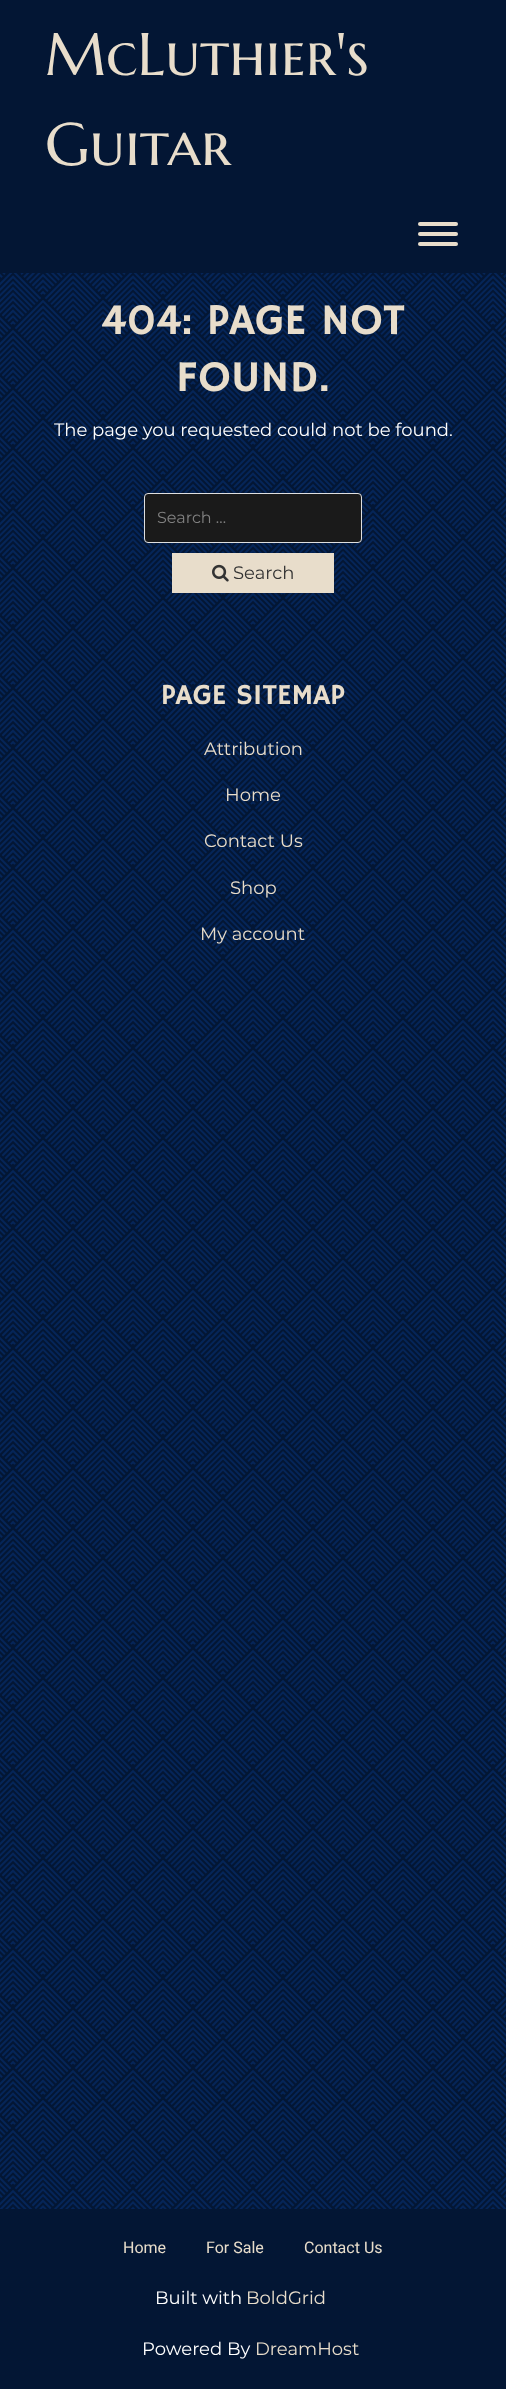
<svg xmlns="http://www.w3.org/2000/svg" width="506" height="2389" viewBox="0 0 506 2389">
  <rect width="100%" height="100%" fill="rgb(3,22,52)"/>
  <image x="0" y="273" width="506" height="1936" href="pic1.png"/>
  <g font-family="Marcellus SC" font-size="60" fill="rgb(232,221,203)">
    <text>
      <tspan x="45" y="75">McLuthier's</tspan>
      <tspan x="45" y="165">Guitar</tspan>
    </text>
  </g>
  <rect x="418" y="242" width="40" height="4" rx="2" fill="rgb(232,221,203)"/>
  <rect x="418" y="222" width="40" height="4" rx="2" fill="rgb(232,221,203)"/>
  <rect x="418" y="232" width="40" height="4" rx="2" fill="rgb(232,221,203)"/>
  <g font-family="Hammersmith One" font-size="44" fill="rgb(232,221,203)">
    <text x="101" y="334">404: PAGE NOT</text>
    <text x="176" y="391">FOUND.</text>
  </g>
  <text x="54" y="436" font-family="Montserrat" font-size="18" font-weight="100" fill="rgb(255,255,255)">The page you requested could not be found.</text>
  <rect x="144.5" y="493.5" width="217" height="49" rx="3.5" fill="rgb(26,26,26)" stroke="rgb(223,223,223)"/>
  <text x="157" y="523" font-family="Montserrat" font-size="16" font-weight="100" fill="rgb(128,128,128)">Search …</text>
  <rect x="172" y="553" width="162" height="40" fill="rgb(232,221,203)"/>
  <image x="212" y="564" width="17" height="18" href="pic2.png"/>
  <text x="233" y="579" font-family="Montserrat" font-size="18" font-weight="100" fill="rgb(51,51,51)">Search</text>
  <text x="161" y="704" font-family="Hammersmith One" font-size="29" fill="rgb(232,221,203)">PAGE SITEMAP</text>
  <g font-family="Montserrat" font-size="18" font-weight="100" fill="rgb(232,221,203)">
    <text x="204" y="755">Attribution</text>
    <text x="225" y="801">Home</text>
    <text x="204" y="847">Contact Us</text>
    <text x="230" y="894">Shop</text>
    <text x="200" y="940">My account</text>
  </g>
  <g font-family="Roboto" font-size="16" fill="rgb(232,221,203)">
    <text x="123" y="2253">Home</text>
    <text x="206" y="2253">For Sale</text>
    <text x="304" y="2253">Contact Us</text>
  </g>
  <text x="155" y="2304" font-family="Montserrat" font-size="18" font-weight="100" fill="rgb(255,255,255)">Built with</text>
  <text x="246" y="2304" font-family="Montserrat" font-size="18" font-weight="100" fill="rgb(232,221,203)">BoldGrid</text>
  <text x="142" y="2355" font-family="Montserrat" font-size="18" font-weight="100" fill="rgb(255,255,255)">Powered By</text>
  <text x="255" y="2355" font-family="Montserrat" font-size="18" font-weight="100" fill="rgb(232,221,203)">DreamHost</text>
</svg>
